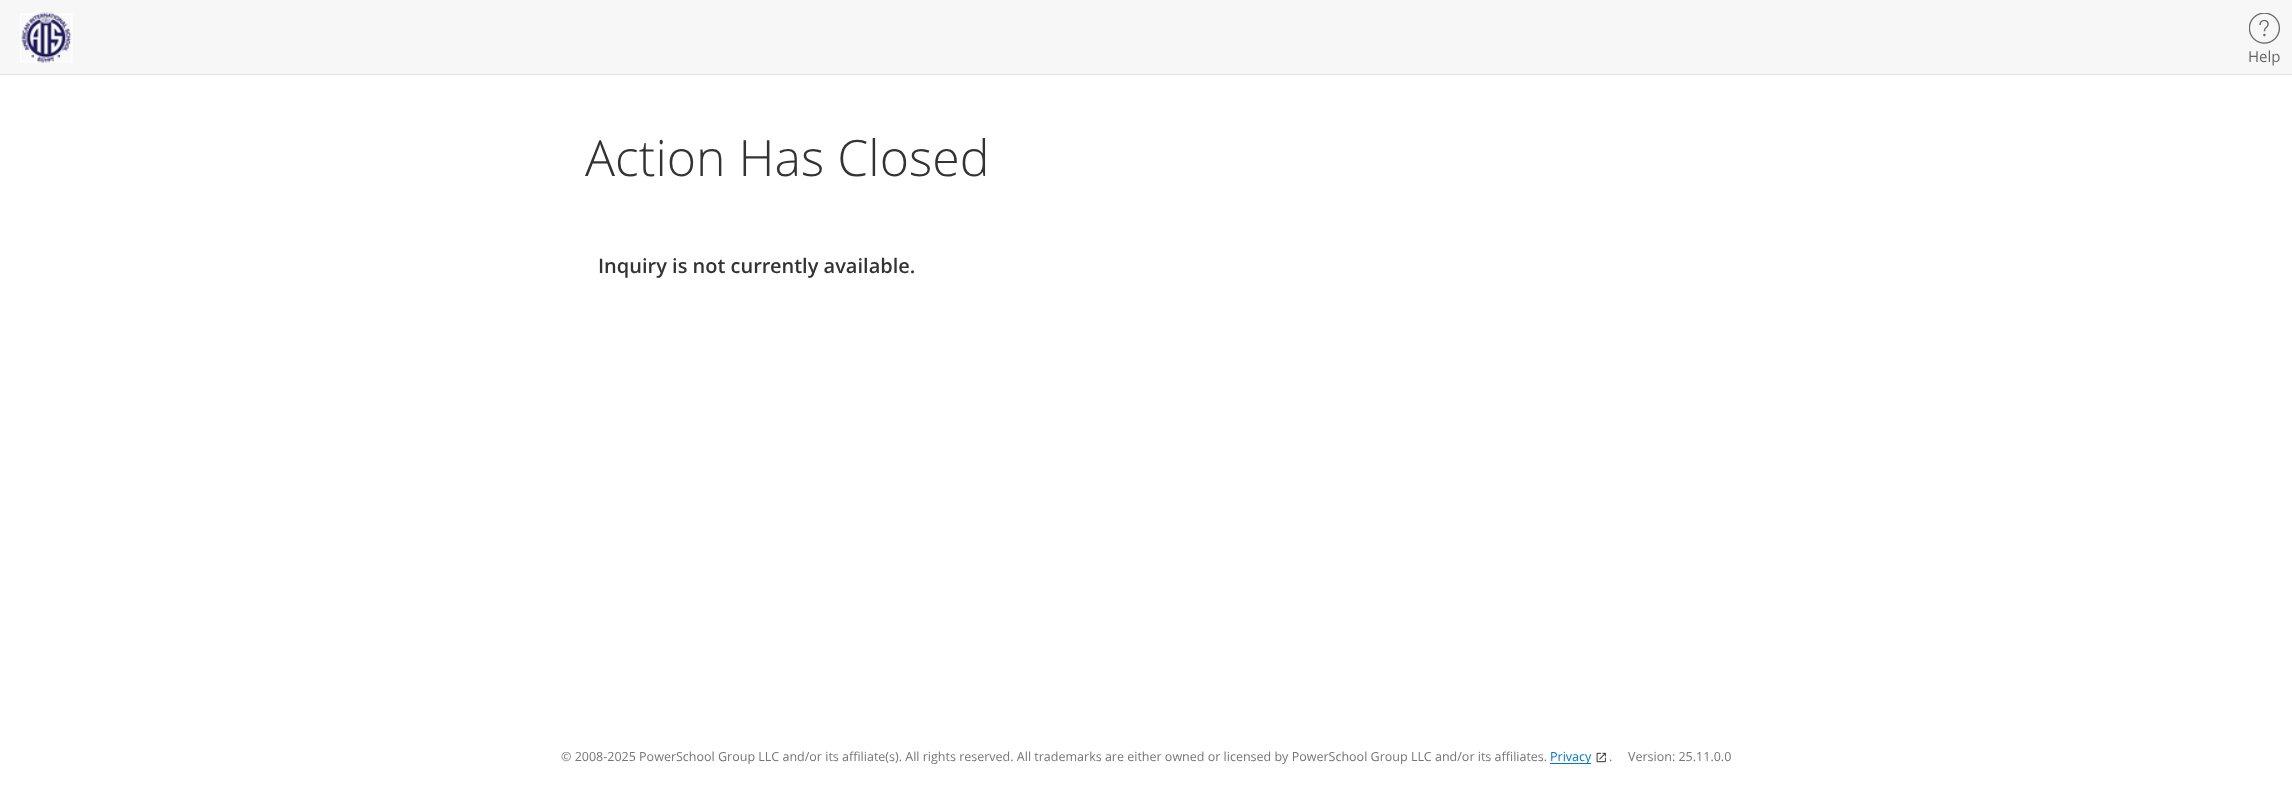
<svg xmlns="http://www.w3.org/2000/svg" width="2292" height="793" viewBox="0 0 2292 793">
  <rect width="100%" height="100%" fill="rgb(255,255,255)"/>
  <rect x="0" y="0" width="2292" height="74" fill="rgb(247,247,247)"/>
  <rect x="0" y="74" width="2292" height="1" fill="rgb(224,224,224)"/>
  <image x="20" y="12" width="53" height="51" href="pic1.png"/>
  <image x="2249" y="13" width="31" height="31" href="pic2.png"/>
  <text x="2248" y="62" font-family="Open Sans" font-size="15" fill="rgb(102,102,102)">Help</text>
  <text x="585" y="176" font-family="Open Sans" font-size="50" font-weight="300" fill="rgb(51,51,51)">Action Has Closed</text>
  <text x="598" y="273" font-family="Open Sans" font-size="20" font-weight="600" fill="rgb(51,51,51)">Inquiry is not currently available.</text>
  <text x="561" y="761" font-family="Open Sans" font-size="12.5" fill="rgb(117,117,117)">© 2008-2025 PowerSchool Group LLC and/or its affiliate(s). All rights reserved. All trademarks are either owned or licensed by PowerSchool Group LLC and/or its affiliates.</text>
  <rect x="1550" y="763" width="41" height="1" fill="rgb(0,117,219)"/>
  <text x="1550" y="761" font-family="Open Sans" font-size="12.5" fill="rgb(0,117,219)">Privacy</text>
  <image x="1596" y="752" width="10" height="11" href="pic3.png"/>
  <g font-family="Open Sans" font-size="12.5" fill="rgb(117,117,117)">
    <text x="1609" y="761">.</text>
    <text x="1628" y="761">Version: 25.11.0.0</text>
  </g>
</svg>
